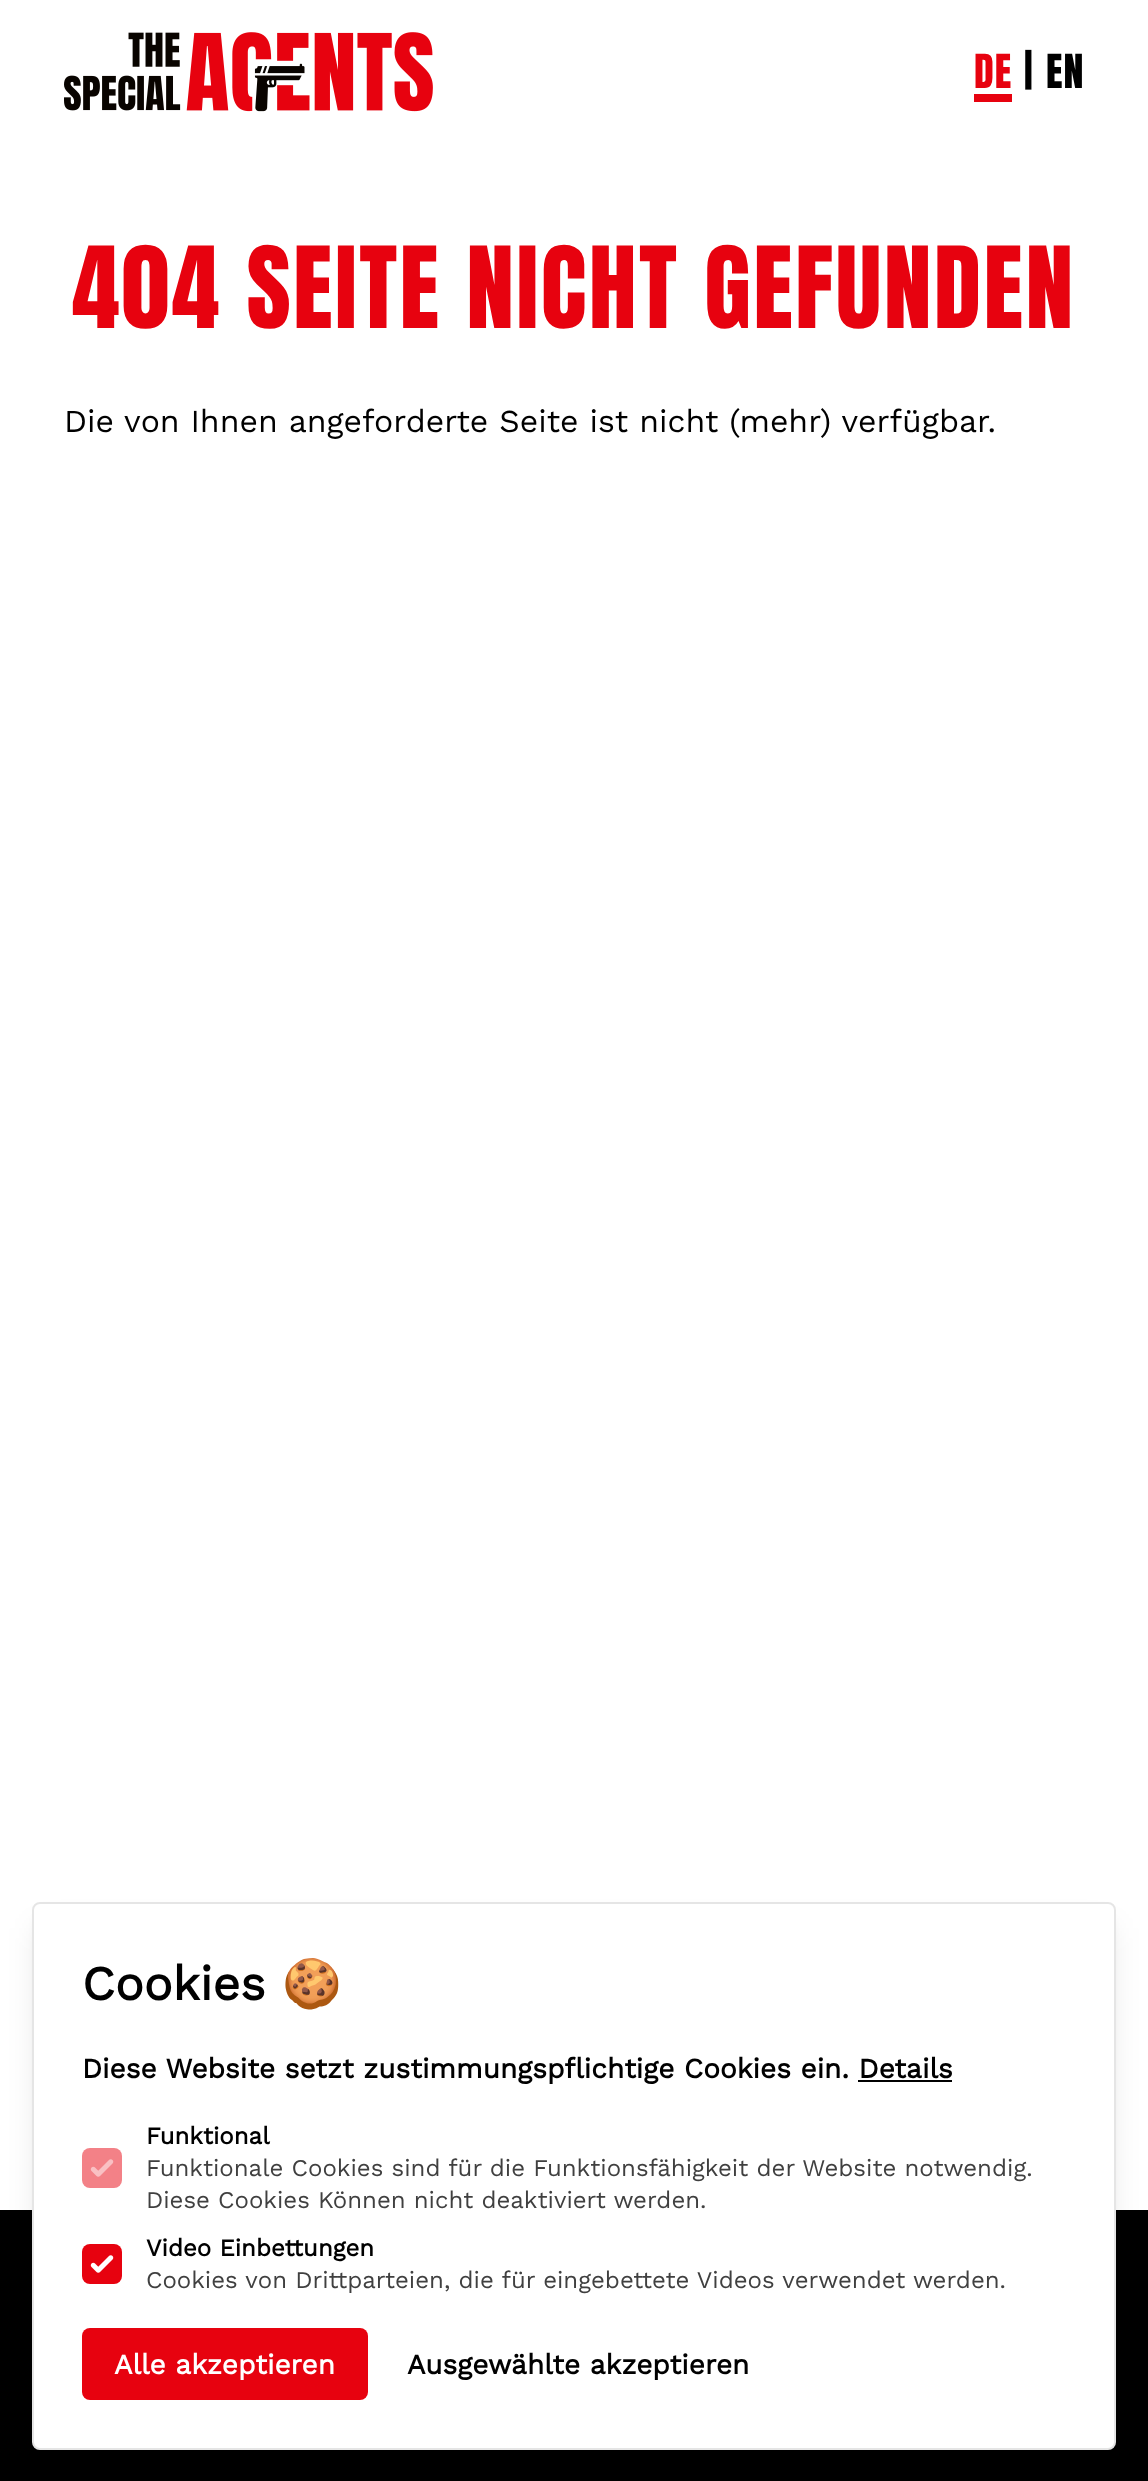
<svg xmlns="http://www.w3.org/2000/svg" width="1148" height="2481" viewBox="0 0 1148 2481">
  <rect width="100%" height="100%" fill="rgb(255,255,255)"/>
  <image x="64" y="32" width="369" height="80" href="pic1.png"/>
  <text x="974" y="88" font-family="Anton" font-size="40" letter-spacing="1" fill="rgb(231,2,15)">DE</text>
  <rect x="974" y="94" width="38" height="8" fill="rgb(231,2,15)"/>
  <g font-family="Anton" font-size="40" letter-spacing="1" fill="rgb(0,0,0)">
    <text x="1024" y="88">|</text>
    <text x="1046" y="88">EN</text>
  </g>
  <text x="72" y="328" font-family="Anton" font-size="96" letter-spacing="2.4" fill="rgb(231,2,15)">404 SEITE NICHT GEFUNDEN</text>
  <text x="64" y="432" font-family="Work Sans" font-size="32" fill="rgb(0,0,0)">Die von Ihnen angeforderte Seite ist nicht (mehr) verfügbar.</text>
  <rect x="0" y="2210" width="1148" height="271" fill="rgb(0,0,0)"/>
  <rect x="40" y="1918" width="1068" height="532" fill="rgba(0,0,0,0.1)" filter="blur(6px)"/>
  <rect x="38" y="1928" width="1072" height="536" rx="2" fill="rgba(0,0,0,0.1)" filter="blur(15px)"/>
  <rect x="32" y="1902" width="1084" height="548" rx="8" fill="rgb(255,255,255)"/>
  <rect x="33" y="1903" width="1082" height="546" rx="7" fill="none" stroke="rgba(0,0,0,0.1)" stroke-width="2"/>
  <text x="82" y="2000" font-family="Work Sans" font-size="48" font-weight="bold" fill="rgb(0,0,0)">Cookies</text>
  <text x="282" y="2000" font-family="Noto Color Emoji" font-size="48" font-weight="bold" fill="rgb(0,0,0)">🍪</text>
  <text x="82" y="2078" font-family="Work Sans" font-size="28" font-weight="bold" fill="rgb(0,0,0)">Diese Website setzt zustimmungspflichtige Cookies ein. Details</text>
  <rect x="858" y="2080" width="94" height="2" fill="rgb(0,0,0)"/>
  <rect x="82" y="2148" width="40" height="40" rx="8" fill="rgb(243,129,135)"/>
  <image x="90" y="2159" width="24" height="18" href="pic2.png"/>
  <text x="146" y="2144" font-family="Work Sans" font-size="24" font-weight="bold" fill="rgb(0,0,0)">Funktional</text>
  <g font-family="Work Sans" font-size="24" fill="rgb(64,64,64)">
    <text>
      <tspan x="146" y="2176">Funktionale Cookies sind für die Funktionsfähigkeit der Website notwendig.</tspan>
      <tspan x="146" y="2208">Diese Cookies Können nicht deaktiviert werden.</tspan>
    </text>
  </g>
  <rect x="82" y="2244" width="40" height="40" rx="8" fill="rgb(231,2,15)"/>
  <image x="90" y="2255" width="24" height="18" href="pic3.png"/>
  <text x="146" y="2256" font-family="Work Sans" font-size="24" font-weight="bold" fill="rgb(0,0,0)">Video Einbettungen</text>
  <text x="146" y="2288" font-family="Work Sans" font-size="24" fill="rgb(64,64,64)">Cookies von Drittparteien, die für eingebettete Videos verwendet werden.</text>
  <rect x="82" y="2328" width="286" height="72" rx="8" fill="rgb(231,2,15)"/>
  <text x="114" y="2374" font-family="Work Sans" font-size="28" font-weight="bold" fill="rgb(255,255,255)">Alle akzeptieren</text>
  <text x="407" y="2374" font-family="Work Sans" font-size="28" font-weight="bold" fill="rgb(0,0,0)">Ausgewählte akzeptieren</text>
</svg>
